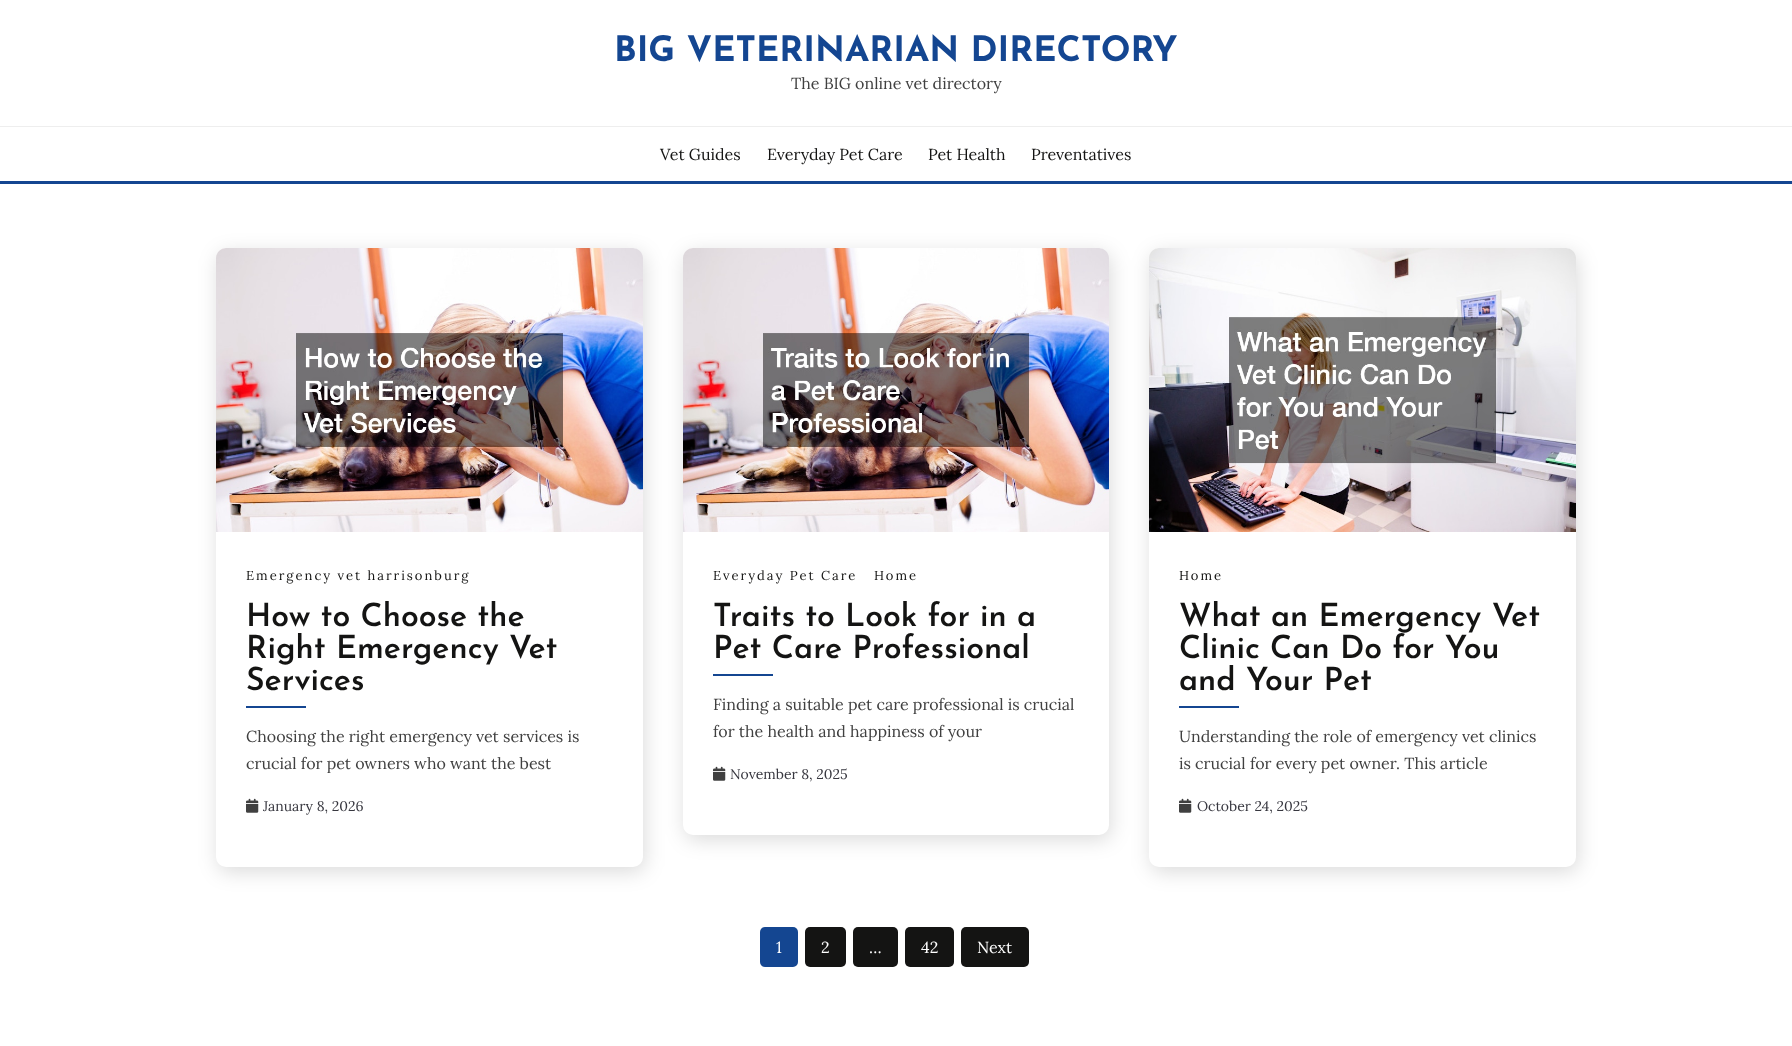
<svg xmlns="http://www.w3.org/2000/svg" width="1792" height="1046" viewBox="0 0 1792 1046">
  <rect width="100%" height="100%" fill="rgb(255,255,255)"/>
  <rect x="0" y="126" width="1792" height="1" fill="rgb(238,238,238)"/>
  <text x="614" y="61" font-family="Josefin Sans" font-size="35" font-weight="bold" fill="rgb(20,70,145)">BIG VETERINARIAN DIRECTORY</text>
  <text x="791" y="89" font-family="Lora" font-size="16" fill="rgb(64,64,64)">The BIG online vet directory</text>
  <rect x="0" y="181" width="1792" height="3" fill="rgb(20,70,145)"/>
  <g font-family="Lora" font-size="16" fill="rgb(20,20,19)">
    <text x="660" y="160">Vet Guides</text>
    <text x="767" y="160">Everyday Pet Care</text>
    <text x="928" y="160">Pet Health</text>
    <text x="1031" y="160">Preventatives</text>
  </g>
  <rect x="218" y="253" width="427" height="619" rx="10" fill="rgba(0,0,0,0.14)" filter="blur(10px)"/>
  <rect x="216" y="248" width="427" height="619" rx="10" fill="rgb(255,255,255)"/>
  <image x="216" y="248" width="427" height="284" href="pic1.png"/>
  <text x="246" y="580" font-family="Lora" font-size="13" letter-spacing="2" fill="rgb(20,20,19)">Emergency vet harrisonburg</text>
  <g font-family="Josefin Sans" font-size="32" font-weight="600" fill="rgb(20,20,19)">
    <text>
      <tspan x="246" y="626">How to Choose the</tspan>
      <tspan x="246" y="658">Right Emergency Vet</tspan>
      <tspan x="246" y="690">Services</tspan>
    </text>
  </g>
  <rect x="246" y="706" width="60" height="2" fill="rgb(20,70,145)"/>
  <g font-family="Lora" font-size="16" fill="rgb(64,64,64)">
    <text>
      <tspan x="246" y="742">Choosing the right emergency vet services is</tspan>
      <tspan x="246" y="769">crucial for pet owners who want the best</tspan>
    </text>
  </g>
  <image x="246" y="798" width="13" height="15" href="pic2.png"/>
  <text x="263" y="811" font-family="Lora" font-size="14" fill="rgb(55,55,63)">January 8, 2026</text>
  <rect x="685" y="253" width="426" height="587" rx="10" fill="rgba(0,0,0,0.14)" filter="blur(10px)"/>
  <rect x="683" y="248" width="426" height="587" rx="10" fill="rgb(255,255,255)"/>
  <image x="683" y="248" width="426" height="284" href="pic3.png"/>
  <g font-family="Lora" font-size="13" letter-spacing="2" fill="rgb(20,20,19)">
    <text x="713" y="580">Everyday Pet Care</text>
    <text x="874" y="580">Home</text>
  </g>
  <g font-family="Josefin Sans" font-size="32" font-weight="600" fill="rgb(20,20,19)">
    <text>
      <tspan x="713" y="626">Traits to Look for in a</tspan>
      <tspan x="713" y="658">Pet Care Professional</tspan>
    </text>
  </g>
  <rect x="713" y="674" width="60" height="2" fill="rgb(20,70,145)"/>
  <g font-family="Lora" font-size="16" fill="rgb(64,64,64)">
    <text>
      <tspan x="713" y="710">Finding a suitable pet care professional is crucial</tspan>
      <tspan x="713" y="737">for the health and happiness of your</tspan>
    </text>
  </g>
  <image x="713" y="766" width="13" height="15" href="pic2.png"/>
  <text x="730" y="779" font-family="Lora" font-size="14" fill="rgb(55,55,63)">November 8, 2025</text>
  <rect x="1151" y="253" width="427" height="619" rx="10" fill="rgba(0,0,0,0.14)" filter="blur(10px)"/>
  <rect x="1149" y="248" width="427" height="619" rx="10" fill="rgb(255,255,255)"/>
  <image x="1149" y="248" width="427" height="284" href="pic4.png"/>
  <text x="1179" y="580" font-family="Lora" font-size="13" letter-spacing="2" fill="rgb(20,20,19)">Home</text>
  <g font-family="Josefin Sans" font-size="32" font-weight="600" fill="rgb(20,20,19)">
    <text>
      <tspan x="1179" y="626">What an Emergency Vet</tspan>
      <tspan x="1179" y="658">Clinic Can Do for You</tspan>
      <tspan x="1179" y="690">and Your Pet</tspan>
    </text>
  </g>
  <rect x="1179" y="706" width="60" height="2" fill="rgb(20,70,145)"/>
  <g font-family="Lora" font-size="16" fill="rgb(64,64,64)">
    <text>
      <tspan x="1179" y="742">Understanding the role of emergency vet clinics</tspan>
      <tspan x="1179" y="769">is crucial for every pet owner. This article</tspan>
    </text>
  </g>
  <image x="1179" y="798" width="13" height="15" href="pic2.png"/>
  <text x="1197" y="811" font-family="Lora" font-size="14" fill="rgb(55,55,63)">October 24, 2025</text>
  <rect x="760" y="927" width="38" height="40" rx="5" fill="rgb(20,70,145)"/>
  <text x="776" y="953" font-family="Lora" font-size="16" fill="rgb(255,255,255)">1</text>
  <rect x="805" y="927" width="41" height="40" rx="5" fill="rgb(20,20,19)"/>
  <text x="821" y="953" font-family="Lora" font-size="16" fill="rgb(255,255,255)">2</text>
  <rect x="853" y="927" width="45" height="40" rx="5" fill="rgb(20,20,19)"/>
  <text x="869" y="953" font-family="Lora" font-size="16" fill="rgb(255,255,255)">…</text>
  <rect x="905" y="927" width="49" height="40" rx="5" fill="rgb(20,20,19)"/>
  <text x="921" y="953" font-family="Lora" font-size="16" fill="rgb(255,255,255)">42</text>
  <rect x="961" y="927" width="68" height="40" rx="5" fill="rgb(20,20,19)"/>
  <text x="977" y="953" font-family="Lora" font-size="16" fill="rgb(255,255,255)">Next</text>
</svg>
